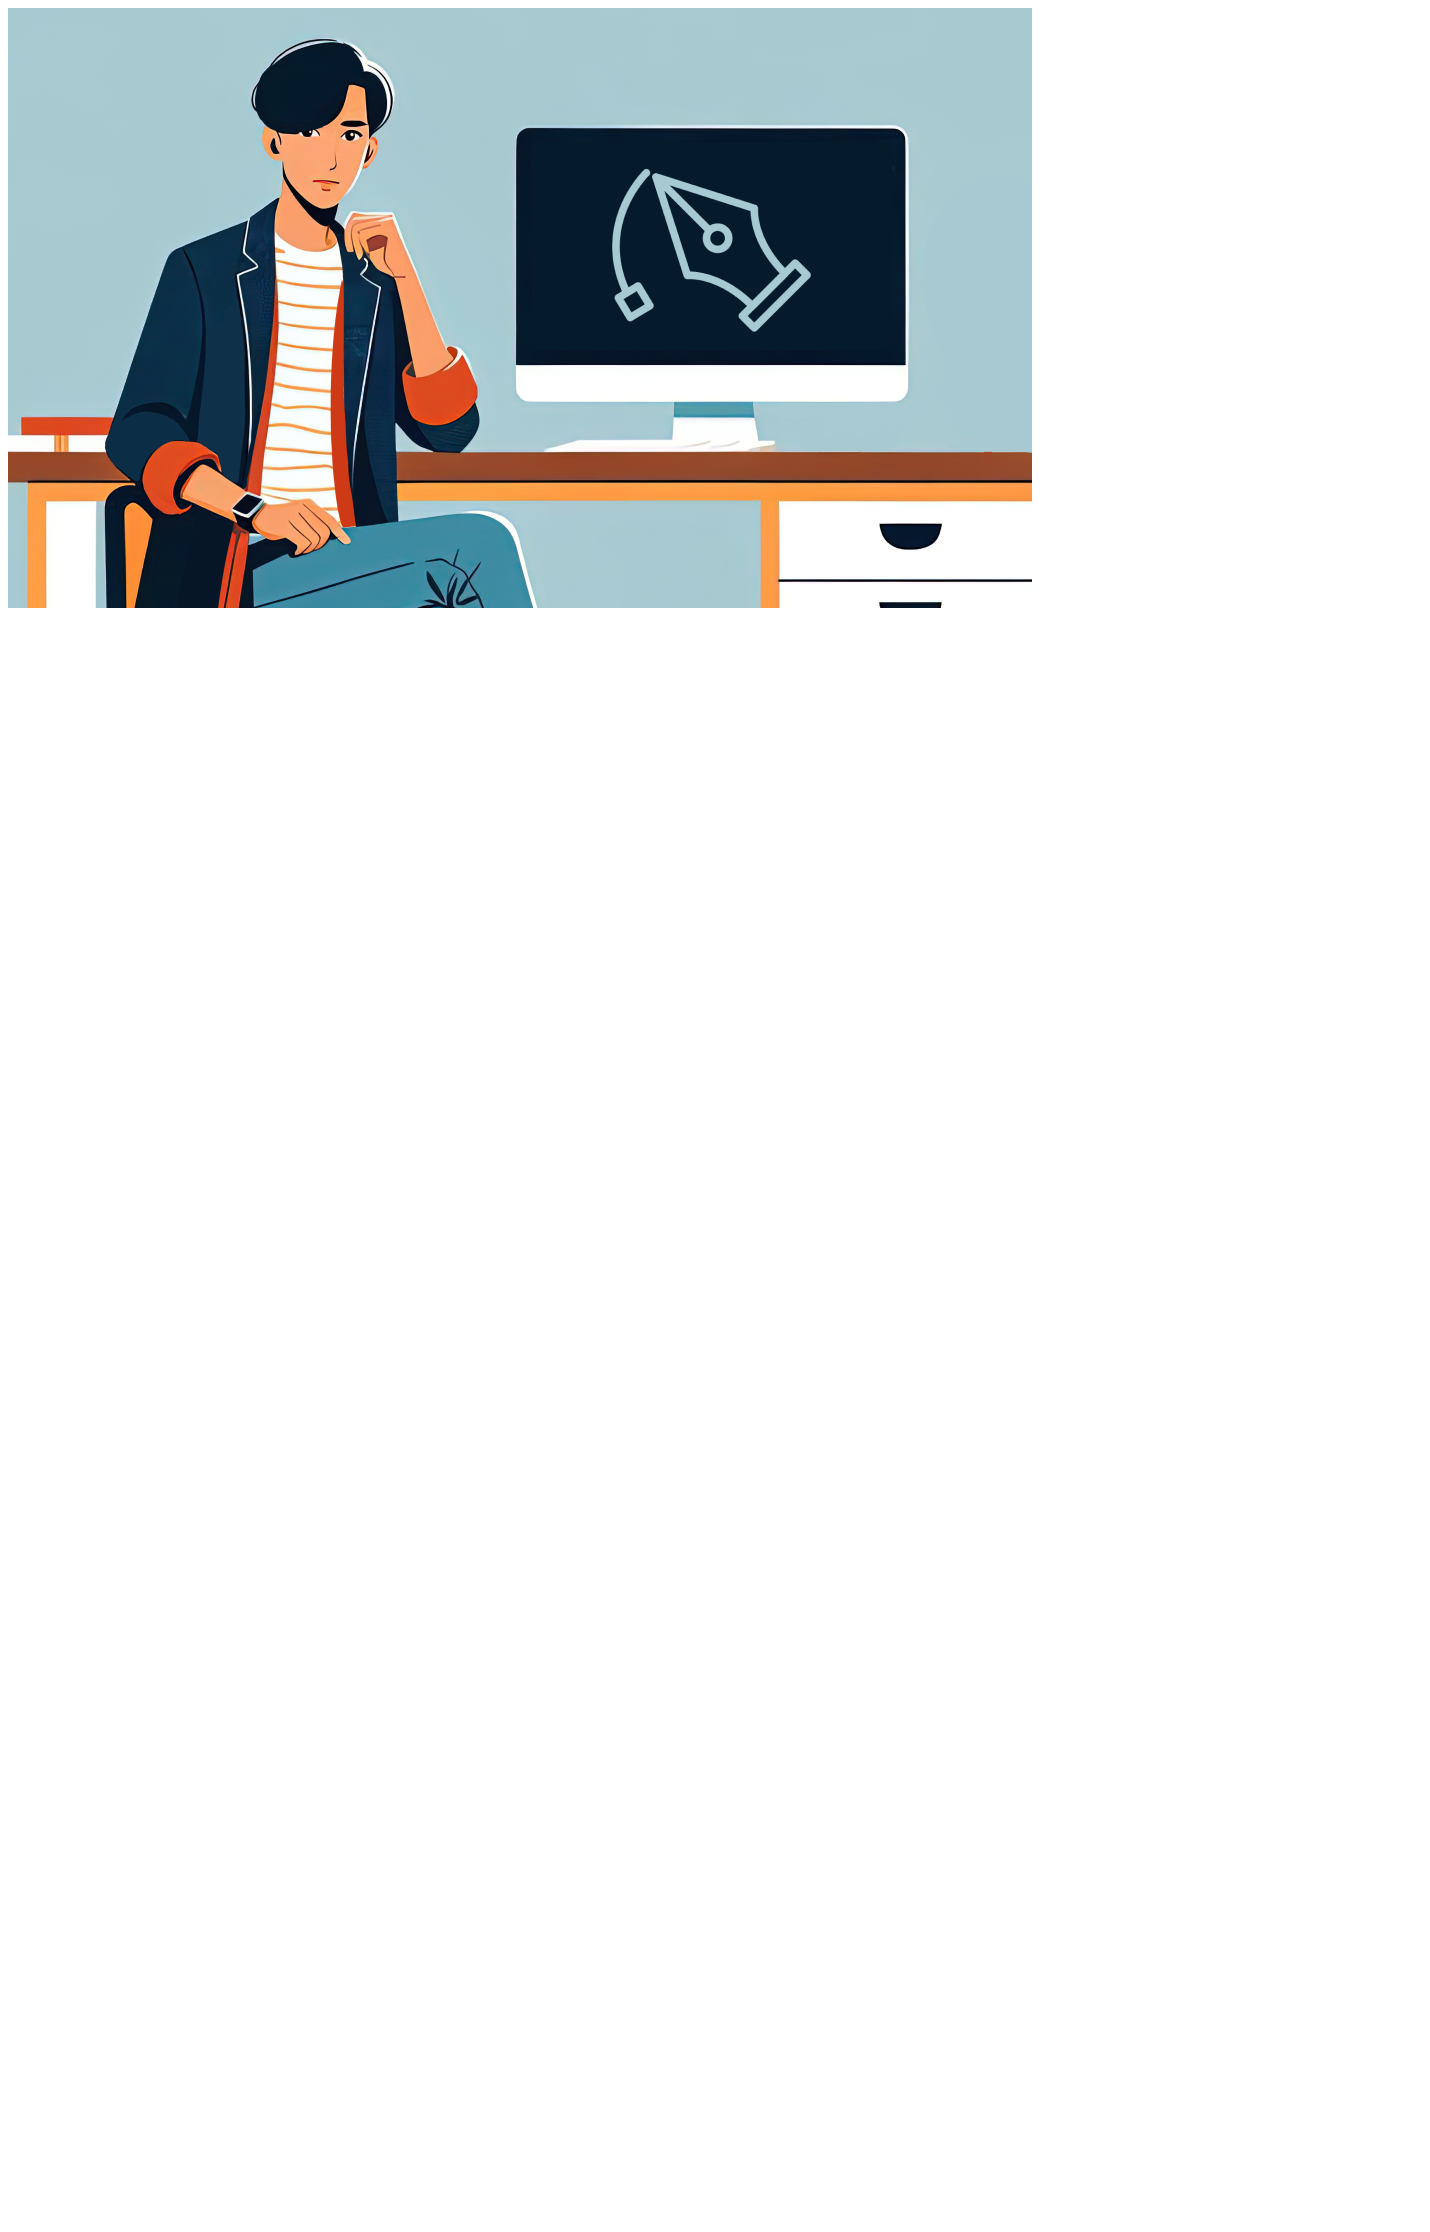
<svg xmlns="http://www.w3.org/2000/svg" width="1430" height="2232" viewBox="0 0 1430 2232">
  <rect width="100%" height="100%" fill="rgb(255,255,255)"/>
  <image x="8" y="8" width="1024" height="600" href="pic1.png"/>
</svg>
